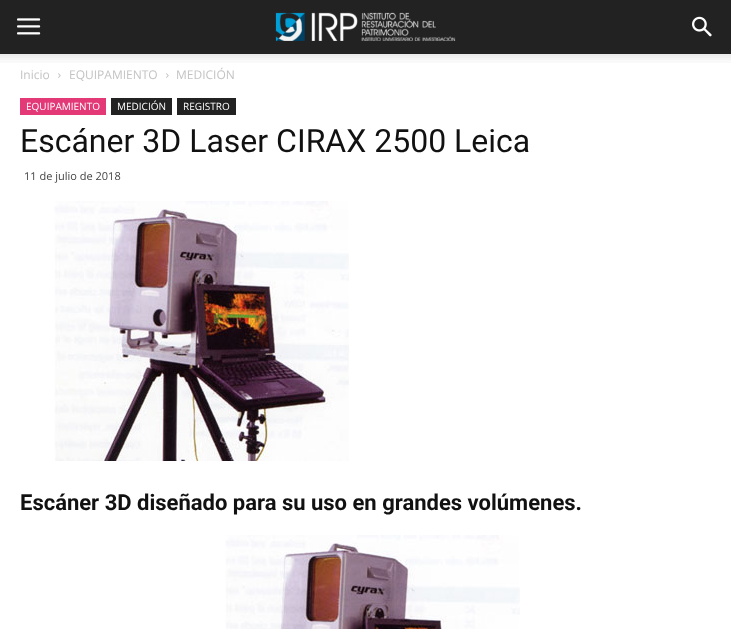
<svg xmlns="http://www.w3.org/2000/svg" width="731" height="629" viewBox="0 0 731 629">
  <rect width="100%" height="100%" fill="rgb(255,255,255)"/>
  <rect x="0" y="0" width="731" height="54" fill="rgb(34,34,34)"/>
  <image x="17" y="18" width="24" height="17" href="pic1.png"/>
  <image x="275" y="12" width="181" height="29" href="pic2.png"/>
  <image x="692" y="16" width="20" height="21" href="pic3.png"/>
  <image x="0" y="54" width="731" height="9" href="pic4.png"/>
  <text x="20" y="79" font-family="Open Sans" font-size="12" fill="rgb(195,195,195)">Inicio</text>
  <image x="58" y="73" width="3" height="5" href="pic5.png"/>
  <text x="69" y="79" font-family="Open Sans" font-size="12" fill="rgb(195,195,195)">EQUIPAMIENTO</text>
  <image x="166" y="73" width="3" height="5" href="pic5.png"/>
  <text x="176" y="79" font-family="Open Sans" font-size="12" fill="rgb(195,195,195)">MEDICIÓN</text>
  <rect x="20" y="98" width="86" height="17" fill="rgb(227,58,119)"/>
  <text x="26" y="110" font-family="Open Sans" font-size="10" fill="rgb(255,255,255)">EQUIPAMIENTO</text>
  <rect x="111" y="98" width="61" height="17" fill="rgb(34,34,34)"/>
  <text x="117" y="110" font-family="Open Sans" font-size="10" fill="rgb(255,255,255)">MEDICIÓN</text>
  <rect x="177" y="98" width="59" height="17" fill="rgb(34,34,34)"/>
  <text x="183" y="110" font-family="Open Sans" font-size="10" fill="rgb(255,255,255)">REGISTRO</text>
  <text x="20" y="152" font-family="Roboto" font-size="32" fill="rgb(17,17,17)">Escáner 3D Laser CIRAX 2500 Leica</text>
  <text x="24" y="180" font-family="Open Sans" font-size="11" fill="rgb(68,68,68)">11 de julio de 2018</text>
  <image x="54" y="201" width="295" height="260" href="pic6.png"/>
  <text x="20" y="510" font-family="Roboto" font-size="22" font-weight="bold" fill="rgb(17,17,17)">Escáner 3D diseñado para su uso en grandes volúmenes.</text>
  <image x="225" y="535" width="295" height="94" href="pic7.png"/>
</svg>
